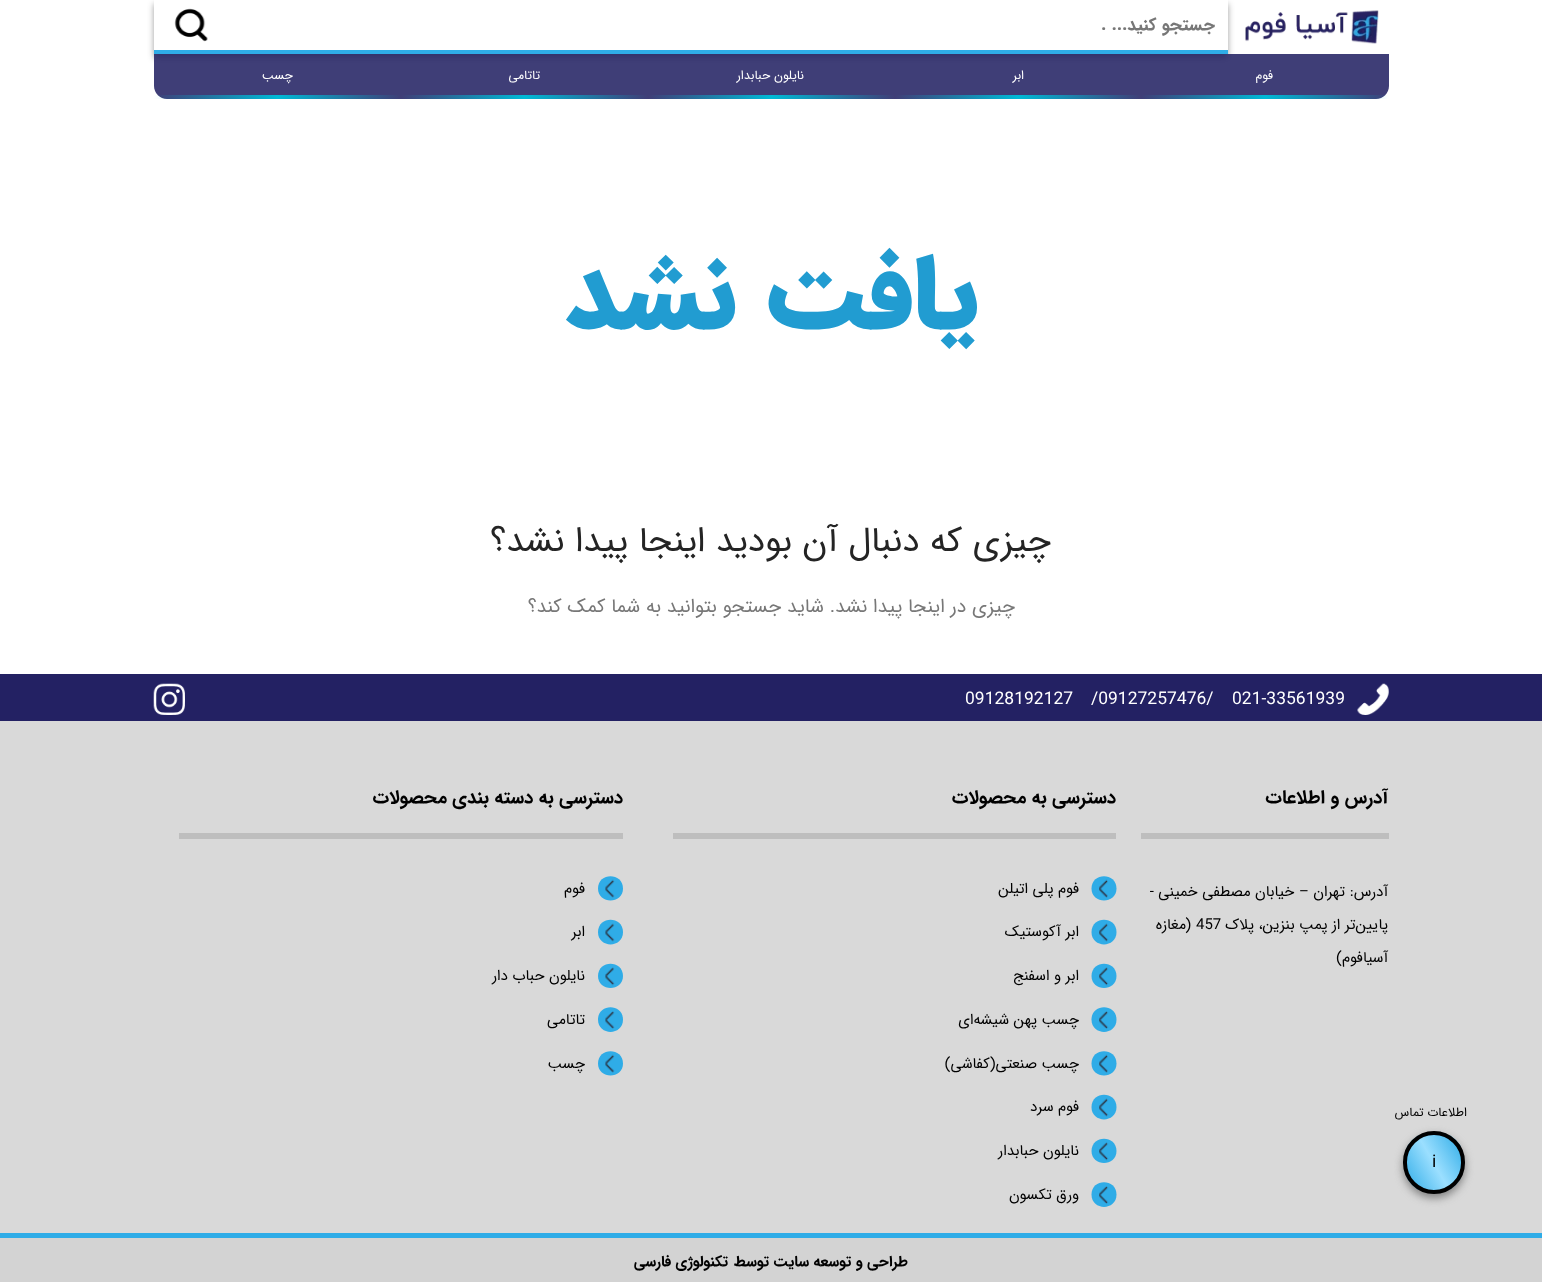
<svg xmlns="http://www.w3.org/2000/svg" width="1542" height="1282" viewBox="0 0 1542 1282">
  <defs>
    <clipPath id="clip1"><path d="M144 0H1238V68H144ZM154 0H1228V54H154Z" clip-rule="evenodd"/></clipPath>
    <linearGradient id="g1" gradientUnits="userSpaceOnUse" x1="1141" y1="97" x2="1389" y2="97"><stop offset="0" stop-color="rgb(0,185,213)" stop-opacity="0"/><stop offset="0.5" stop-color="rgb(0,185,213)"/><stop offset="1" stop-color="rgb(0,185,213)" stop-opacity="0"/></linearGradient>
    <linearGradient id="g2" gradientUnits="userSpaceOnUse" x1="895" y1="97" x2="1141" y2="97"><stop offset="0" stop-color="rgb(64,62,119)"/><stop offset="0.5" stop-color="rgb(0,185,213)"/><stop offset="1" stop-color="rgb(64,62,119)"/></linearGradient>
    <linearGradient id="g3" gradientUnits="userSpaceOnUse" x1="648" y1="97" x2="895" y2="97"><stop offset="0" stop-color="rgb(64,62,119)"/><stop offset="0.5" stop-color="rgb(0,185,213)"/><stop offset="1" stop-color="rgb(64,62,119)"/></linearGradient>
    <linearGradient id="g4" gradientUnits="userSpaceOnUse" x1="401" y1="97" x2="648" y2="97"><stop offset="0" stop-color="rgb(64,62,119)"/><stop offset="0.5" stop-color="rgb(0,185,213)"/><stop offset="1" stop-color="rgb(64,62,119)"/></linearGradient>
    <linearGradient id="g5" gradientUnits="userSpaceOnUse" x1="154" y1="97" x2="401" y2="97"><stop offset="0" stop-color="rgb(0,185,213)" stop-opacity="0"/><stop offset="0.5" stop-color="rgb(0,185,213)"/><stop offset="1" stop-color="rgb(0,185,213)" stop-opacity="0"/></linearGradient>
    <clipPath id="clip2"><rect x="1403" y="1131" width="62" height="63" rx="31"/></clipPath>
    <linearGradient id="g6" gradientUnits="userSpaceOnUse" x1="1466" y1="1144" x2="1401" y2="1181"><stop offset="0" stop-color="rgb(47,172,231)"/><stop offset="0.5" stop-color="rgb(155,223,255)"/><stop offset="1" stop-color="rgb(47,172,231)"/></linearGradient>
  </defs>
  <rect width="100%" height="100%" fill="rgb(255,255,255)"/>
  <image x="1245" y="10" width="134" height="34" href="pic1.png"/>
  <g clip-path="url(#clip1)">
    <rect x="154" y="4" width="1074" height="54" fill="rgba(0,0,0,0.38)" filter="blur(3px)"/>
  </g>
  <rect x="154" y="50" width="1074" height="4" fill="rgb(47,172,231)"/>
  <text x="1215" y="30" font-family="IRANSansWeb" font-size="17.5" font-weight="bold" direction="rtl" fill="rgb(119,119,119)">جستجو کنید... .</text>
  <image x="174" y="8" width="34" height="34" href="pic2.png"/>
  <path d="M154 54H1389V86C1389 93 1383 99 1376 99H167C160 99 154 93 154 86Z" fill="rgba(35,33,99,0.87)"/>
  <text x="1273" y="79" font-family="IRANSansWeb" font-size="12.5" direction="rtl" fill="rgb(255,255,255)">فوم</text>
  <rect x="1141" y="95" width="248" height="4" fill="url(#g1)"/>
  <text x="1024" y="79" font-family="IRANSansWeb" font-size="12.5" direction="rtl" fill="rgb(255,255,255)">ابر</text>
  <rect x="895" y="95" width="246" height="4" fill="url(#g2)"/>
  <text x="804" y="79" font-family="IRANSansWeb" font-size="12.5" direction="rtl" fill="rgb(255,255,255)">نایلون حبابدار</text>
  <rect x="648" y="95" width="247" height="4" fill="url(#g3)"/>
  <text x="540" y="79" font-family="IRANSansWeb" font-size="12.5" direction="rtl" fill="rgb(255,255,255)">تاتامی</text>
  <rect x="401" y="95" width="247" height="4" fill="url(#g4)"/>
  <text x="293" y="79" font-family="IRANSansWeb" font-size="12.5" direction="rtl" fill="rgb(255,255,255)">چسب</text>
  <rect x="154" y="95" width="247" height="4" fill="url(#g5)"/>
  <rect x="0" y="721" width="1542" height="512" fill="rgb(217,217,217)"/>
  <rect x="1403" y="1135" width="62" height="63" rx="31" fill="rgb(128,128,128)" filter="blur(4px)"/>
  <g clip-path="url(#clip2)">
    <rect x="1406" y="1135" width="55" height="55" fill="url(#g6)"/>
  </g>
  <rect x="1405" y="1133" width="58" height="59" rx="29" fill="none" stroke="rgb(0,0,0)" stroke-width="4"/>
  <text x="1467" y="1116" font-family="IRANSansWeb" font-size="12.5" direction="rtl" fill="rgb(0,0,0)">اطلاعات تماس</text>
  <text x="1432" y="1167" font-family="IRANSansWeb" font-size="17.5" fill="rgb(0,0,0)">i</text>
  <text x="978" y="325" font-family="IRANSansWeb" font-size="102.5" font-weight="900" direction="rtl" fill="rgb(33,156,209)">یافت نشد</text>
  <text x="1051" y="551" font-family="IRANSansWeb" font-size="35" direction="rtl" fill="rgb(36,36,36)">چیزی که دنبال آن بودید اینجا پیدا نشد؟</text>
  <text x="1015" y="612" font-family="IRANSansWeb" font-size="19.25" direction="rtl" fill="rgb(119,119,119)">چیزی در اینجا پیدا نشد. شاید جستجو بتوانید به شما کمک کند؟</text>
  <rect x="0" y="674" width="1542" height="47" fill="rgb(35,33,99)"/>
  <image x="1357" y="683" width="32" height="32" href="pic3.png"/>
  <g font-family="IRANSansWeb" font-size="17.5" fill="rgb(255,255,255)">
    <text x="1232" y="704">021-33561939</text>
    <text x="1091" y="704">/09127257476/</text>
    <text x="965" y="704">09128192127</text>
  </g>
  <image x="153" y="683" width="32" height="32" href="pic4.png"/>
  <rect x="1141" y="833" width="248" height="6" fill="rgb(190,190,190)"/>
  <text x="1388" y="803" font-family="IRANSansWeb" font-size="18.75" font-weight="bold" direction="rtl" fill="rgb(0,0,0)">آدرس و اطلاعات</text>
  <g font-family="IRANSansWeb" font-size="15" direction="rtl" fill="rgb(0,0,0)">
    <text x="1388" y="896">آدرس:</text>
    <text x="1345" y="896">تهران – خیابان مصطفی خمینی -</text>
    <text x="1388" y="929">پایین‌تر از پمپ بنزین، پلاک</text>
  </g>
  <text x="1196" y="929" font-family="IRANSansWeb" font-size="15" fill="rgb(0,0,0)">457</text>
  <g font-family="IRANSansWeb" font-size="15" direction="rtl" fill="rgb(0,0,0)">
    <text x="1191" y="929">(مغازه</text>
    <text x="1388" y="962">آسیافوم)</text>
  </g>
  <rect x="673" y="833" width="443" height="6" fill="rgb(190,190,190)"/>
  <text x="1116" y="803" font-family="IRANSansWeb" font-size="18.75" font-weight="bold" direction="rtl" fill="rgb(0,0,0)">دسترسی به محصولات</text>
  <path d="M1116.5 888.5C1116.5 904.5 1091.5 904.5 1091.5 888.5C1091.5 872 1116.5 872 1116.5 888.5Z" fill="rgb(47,172,231)"/>
  <image x="1099" y="879" width="9" height="19" href="pic5.png"/>
  <text x="1079" y="893" font-family="IRANSansWeb" font-size="15" direction="rtl" fill="rgb(0,0,0)">فوم پلی اتیلن</text>
  <path d="M1116.5 932C1116.5 948.5 1091.5 948.5 1091.5 932C1091.5 915.5 1116.5 915.5 1116.5 932Z" fill="rgb(47,172,231)"/>
  <image x="1099" y="923" width="10" height="19" href="pic6.png"/>
  <text x="1079" y="936" font-family="IRANSansWeb" font-size="15" direction="rtl" fill="rgb(0,0,0)">ابر آکوستیک</text>
  <path d="M1116.5 976C1116.5 992 1091.5 992 1091.5 976C1091.5 959.5 1116.5 959.5 1116.5 976Z" fill="rgb(47,172,231)"/>
  <image x="1099" y="967" width="10" height="19" href="pic7.png"/>
  <text x="1079" y="980" font-family="IRANSansWeb" font-size="15" direction="rtl" fill="rgb(0,0,0)">ابر و اسفنج</text>
  <path d="M1116.5 1019.5C1116.5 1036 1091.5 1036 1091.5 1019.5C1091.5 1003 1116.5 1003 1116.5 1019.5Z" fill="rgb(47,172,231)"/>
  <image x="1099" y="1011" width="10" height="18" href="pic8.png"/>
  <text x="1079" y="1024" font-family="IRANSansWeb" font-size="15" direction="rtl" fill="rgb(0,0,0)">چسب پهن شیشه‌ای</text>
  <path d="M1116.5 1063.5C1116.5 1079.5 1091.5 1079.5 1091.5 1063.5C1091.5 1047 1116.5 1047 1116.5 1063.5Z" fill="rgb(47,172,231)"/>
  <image x="1099" y="1054" width="9" height="19" href="pic5.png"/>
  <text x="1079" y="1068" font-family="IRANSansWeb" font-size="15" direction="rtl" fill="rgb(0,0,0)">چسب صنعتی(کفاشی)</text>
  <path d="M1116.5 1107C1116.5 1123.5 1091.5 1123.5 1091.5 1107C1091.5 1090.5 1116.5 1090.5 1116.5 1107Z" fill="rgb(47,172,231)"/>
  <image x="1099" y="1098" width="10" height="19" href="pic6.png"/>
  <text x="1079" y="1111" font-family="IRANSansWeb" font-size="15" direction="rtl" fill="rgb(0,0,0)">فوم سرد</text>
  <path d="M1116.5 1151C1116.5 1167 1091.5 1167 1091.5 1151C1091.5 1134.5 1116.5 1134.5 1116.5 1151Z" fill="rgb(47,172,231)"/>
  <image x="1099" y="1142" width="10" height="19" href="pic7.png"/>
  <text x="1079" y="1155" font-family="IRANSansWeb" font-size="15" direction="rtl" fill="rgb(0,0,0)">نایلون حبابدار</text>
  <path d="M1116.5 1194.5C1116.5 1211 1091.5 1211 1091.5 1194.5C1091.5 1178 1116.5 1178 1116.5 1194.5Z" fill="rgb(47,172,231)"/>
  <image x="1099" y="1186" width="10" height="18" href="pic8.png"/>
  <text x="1079" y="1199" font-family="IRANSansWeb" font-size="15" direction="rtl" fill="rgb(0,0,0)">ورق تکسون</text>
  <rect x="179" y="833" width="444" height="6" fill="rgb(190,190,190)"/>
  <text x="623" y="803" font-family="IRANSansWeb" font-size="18.75" font-weight="bold" direction="rtl" fill="rgb(0,0,0)">دسترسی به دسته بندی محصولات</text>
  <path d="M623 888.5C623 904.5 598 904.5 598 888.5C598 872 623 872 623 888.5Z" fill="rgb(47,172,231)"/>
  <image x="605" y="879" width="10" height="19" href="pic9.png"/>
  <text x="585" y="893" font-family="IRANSansWeb" font-size="15" direction="rtl" fill="rgb(0,0,0)">فوم</text>
  <path d="M623 932C623 948.5 598 948.5 598 932C598 915.5 623 915.5 623 932Z" fill="rgb(47,172,231)"/>
  <image x="605" y="923" width="10" height="19" href="pic10.png"/>
  <text x="585" y="936" font-family="IRANSansWeb" font-size="15" direction="rtl" fill="rgb(0,0,0)">ابر</text>
  <path d="M623 976C623 992 598 992 598 976C598 959.5 623 959.5 623 976Z" fill="rgb(47,172,231)"/>
  <image x="605" y="967" width="10" height="19" href="pic11.png"/>
  <text x="585" y="980" font-family="IRANSansWeb" font-size="15" direction="rtl" fill="rgb(0,0,0)">نایلون حباب دار</text>
  <path d="M623 1019.5C623 1036 598 1036 598 1019.5C598 1003 623 1003 623 1019.5Z" fill="rgb(47,172,231)"/>
  <image x="605" y="1011" width="10" height="18" href="pic12.png"/>
  <text x="585" y="1024" font-family="IRANSansWeb" font-size="15" direction="rtl" fill="rgb(0,0,0)">تاتامی</text>
  <path d="M623 1063.5C623 1079.5 598 1079.5 598 1063.5C598 1047 623 1047 623 1063.5Z" fill="rgb(47,172,231)"/>
  <image x="605" y="1054" width="10" height="19" href="pic9.png"/>
  <text x="585" y="1068" font-family="IRANSansWeb" font-size="15" direction="rtl" fill="rgb(0,0,0)">چسب</text>
  <rect x="0" y="1238" width="1542" height="44" fill="rgb(211,211,211)"/>
  <rect x="0" y="1233" width="1542" height="5" fill="rgb(47,172,231)"/>
  <g font-family="IRANSansWeb" font-size="15" font-weight="bold" direction="rtl" fill="rgb(0,0,0)">
    <text x="908" y="1266">طراحی و توسعه سایت توسط</text>
    <text x="728" y="1266">تکنولوژی فارسی</text>
  </g>
</svg>
